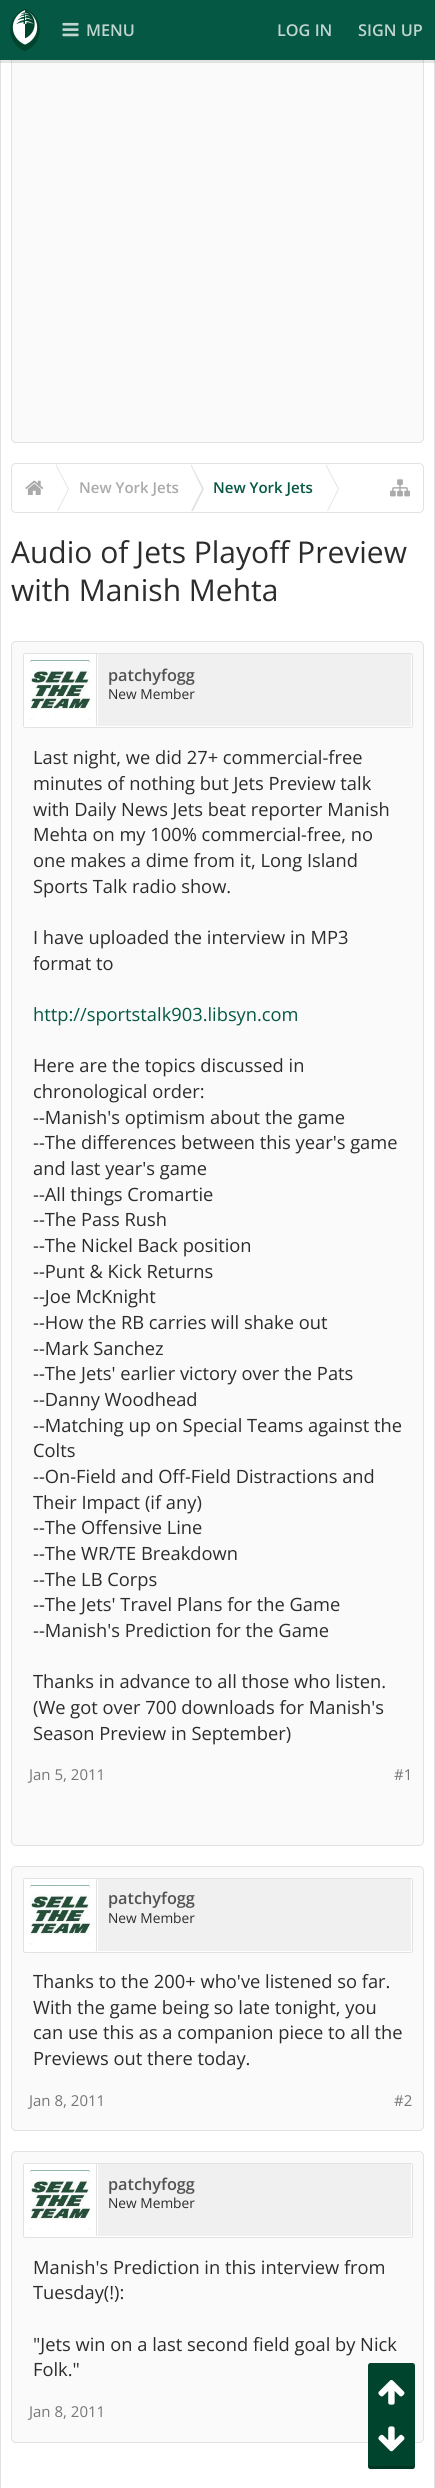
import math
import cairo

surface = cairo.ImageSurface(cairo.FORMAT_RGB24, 435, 2488)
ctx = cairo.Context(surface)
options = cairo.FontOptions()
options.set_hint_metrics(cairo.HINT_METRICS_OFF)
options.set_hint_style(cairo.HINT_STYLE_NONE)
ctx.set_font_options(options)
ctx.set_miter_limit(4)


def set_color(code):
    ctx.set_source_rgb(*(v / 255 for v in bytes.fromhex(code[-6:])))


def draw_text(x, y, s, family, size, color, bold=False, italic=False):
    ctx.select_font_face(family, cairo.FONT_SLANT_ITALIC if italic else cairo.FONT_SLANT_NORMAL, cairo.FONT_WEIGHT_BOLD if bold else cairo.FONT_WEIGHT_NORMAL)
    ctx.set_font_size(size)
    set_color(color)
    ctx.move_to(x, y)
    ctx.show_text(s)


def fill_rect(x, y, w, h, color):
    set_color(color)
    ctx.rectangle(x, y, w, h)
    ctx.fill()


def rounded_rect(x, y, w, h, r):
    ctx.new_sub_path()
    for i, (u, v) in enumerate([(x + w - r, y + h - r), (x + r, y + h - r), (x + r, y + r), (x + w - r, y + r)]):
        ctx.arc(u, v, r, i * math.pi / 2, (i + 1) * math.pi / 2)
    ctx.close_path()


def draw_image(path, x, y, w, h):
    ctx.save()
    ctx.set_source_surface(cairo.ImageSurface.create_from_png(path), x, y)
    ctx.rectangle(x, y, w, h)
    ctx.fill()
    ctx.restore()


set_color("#ffffff")
ctx.paint()
fill_rect(434, 60, 1, 2428, "#e2e2e2")
fill_rect(0, 60, 1, 2428, "#e2e2e2")
set_color("#fafafa")
rounded_rect(11.5, -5.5, 412, 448, 4.5)
ctx.fill_preserve()
set_color("#e2e2e2")
ctx.set_line_width(1)
ctx.stroke()
ctx.set_source_rgba(0, 0, 0, 0.1)
ctx.rectangle(0, 60, 435, 3)
ctx.fill()
fill_rect(0, 0, 435, 60, "#055843")
draw_image("assets/img1.png", 10, 9, 30, 42)
draw_image("assets/img2.png", 62, 22, 17, 15)
draw_text(86, 36, "MENU", "Open Sans SemiBold", 16.25, "#c1d5d0")
draw_text(277, 36, "LOG IN", "Open Sans SemiBold", 16.25, "#c1d5d0")
draw_text(358, 36, "SIGN UP", "Open Sans SemiBold", 16.25, "#c1d5d0")
rounded_rect(11.5, 463.5, 412, 49, 4.5)
set_color("#e2e2e2")
ctx.stroke()
draw_image("assets/img3.png", 25, 480, 19, 15)
ctx.new_path()
ctx.move_to(58, 511)
ctx.line_to(56, 511)
ctx.line_to(56, 464)
ctx.line_to(69, 489)
ctx.close_path()
ctx.fill()
set_color("#ffffff")
ctx.new_path()
ctx.move_to(57, 511)
ctx.line_to(55, 511)
ctx.line_to(55, 464)
ctx.line_to(68, 489)
ctx.close_path()
ctx.fill()
draw_text(79, 493, "New York Jets", "Open Sans SemiBold", 15, "#aaaaaa")
set_color("#e2e2e2")
ctx.new_path()
ctx.move_to(193, 511)
ctx.line_to(191, 511)
ctx.line_to(191, 464)
ctx.line_to(204, 489)
ctx.close_path()
ctx.fill()
set_color("#ffffff")
ctx.new_path()
ctx.move_to(191, 511)
ctx.line_to(190, 511)
ctx.line_to(190, 464)
ctx.line_to(202, 489)
ctx.close_path()
ctx.fill()
draw_text(213, 493, "New York Jets", "Open Sans SemiBold", 15, "#055843")
set_color("#e2e2e2")
ctx.new_path()
ctx.move_to(328, 511)
ctx.line_to(326, 511)
ctx.line_to(326, 464)
ctx.line_to(339, 489)
ctx.close_path()
ctx.fill()
set_color("#ffffff")
ctx.new_path()
ctx.move_to(327, 511)
ctx.line_to(325, 511)
ctx.line_to(325, 464)
ctx.line_to(338, 489)
ctx.close_path()
ctx.fill()
draw_image("assets/img4.png", 390, 479, 20, 18)
draw_text(11, 563, "Audio of Jets Playoff Preview", "Open Sans", 30, "#2c2c2c")
draw_text(11, 601, "with Manish Mehta", "Open Sans", 30, "#2c2c2c")
set_color("#fafafa")
rounded_rect(11.5, 641.5, 412, 1204, 4.5)
ctx.fill_preserve()
set_color("#e2e2e2")
ctx.stroke()
set_color("#ffffff")
rounded_rect(23.5, 653.5, 389, 74, 2)
ctx.fill_preserve()
set_color("#e2e2e2")
ctx.stroke()
set_color("#055843")
rounded_rect(30, 660, 60, 60, 2.5)
ctx.fill()
draw_image("assets/img5.png", 30, 660, 60, 60)
fill_rect(98, 654, 313, 72, "#f0f0f0")
fill_rect(96, 654, 1, 72, "#e2e2e2")
draw_text(108, 681, "patchyfogg", "Open Sans SemiBold", 16.25, "#535353")
draw_text(108, 699, "New Member", "Open Sans", 13.75, "#2c2c2c")
draw_text(33, 764, "Last night, we did 27+ commercial-free", "Open Sans", 18.3, "#2c2c2c")
draw_text(33, 790, "minutes of nothing but Jets Preview talk", "Open Sans", 18.3, "#2c2c2c")
draw_text(33, 816, "with Daily News Jets beat reporter Manish", "Open Sans", 18.3, "#2c2c2c")
draw_text(33, 841, "Mehta on my 100% commercial-free, no", "Open Sans", 18.3, "#2c2c2c")
draw_text(33, 867, "one makes a dime from it, Long Island", "Open Sans", 18.3, "#2c2c2c")
draw_text(33, 893, "Sports Talk radio show.", "Open Sans", 18.3, "#2c2c2c")
draw_text(33, 944, "I have uploaded the interview in MP3", "Open Sans", 18.3, "#2c2c2c")
draw_text(33, 970, "format to", "Open Sans", 18.3, "#2c2c2c")
draw_text(33, 1021, "http://sportstalk903.libsyn.com", "Open Sans", 18.3, "#055843")
draw_text(33, 1072, "Here are the topics discussed in", "Open Sans", 18.3, "#2c2c2c")
draw_text(33, 1098, "chronological order:", "Open Sans", 18.3, "#2c2c2c")
draw_text(33, 1124, "--Manish's optimism about the game", "Open Sans", 18.3, "#2c2c2c")
draw_text(33, 1149, "--The differences between this year's game", "Open Sans", 18.3, "#2c2c2c")
draw_text(33, 1175, "and last year's game", "Open Sans", 18.3, "#2c2c2c")
draw_text(33, 1201, "--All things Cromartie", "Open Sans", 18.3, "#2c2c2c")
draw_text(33, 1226, "--The Pass Rush", "Open Sans", 18.3, "#2c2c2c")
draw_text(33, 1252, "--The Nickel Back position", "Open Sans", 18.3, "#2c2c2c")
draw_text(33, 1278, "--Punt & Kick Returns", "Open Sans", 18.3, "#2c2c2c")
draw_text(33, 1303, "--Joe McKnight", "Open Sans", 18.3, "#2c2c2c")
draw_text(33, 1329, "--How the RB carries will shake out", "Open Sans", 18.3, "#2c2c2c")
draw_text(33, 1355, "--Mark Sanchez", "Open Sans", 18.3, "#2c2c2c")
draw_text(33, 1380, "--The Jets' earlier victory over the Pats", "Open Sans", 18.3, "#2c2c2c")
draw_text(33, 1406, "--Danny Woodhead", "Open Sans", 18.3, "#2c2c2c")
draw_text(33, 1432, "--Matching up on Special Teams against the", "Open Sans", 18.3, "#2c2c2c")
draw_text(33, 1457, "Colts", "Open Sans", 18.3, "#2c2c2c")
draw_text(33, 1483, "--On-Field and Off-Field Distractions and", "Open Sans", 18.3, "#2c2c2c")
draw_text(33, 1509, "Their Impact (if any)", "Open Sans", 18.3, "#2c2c2c")
draw_text(33, 1534, "--The Offensive Line", "Open Sans", 18.3, "#2c2c2c")
draw_text(33, 1560, "--The WR/TE Breakdown", "Open Sans", 18.3, "#2c2c2c")
draw_text(33, 1586, "--The LB Corps", "Open Sans", 18.3, "#2c2c2c")
draw_text(33, 1611, "--The Jets' Travel Plans for the Game", "Open Sans", 18.3, "#2c2c2c")
draw_text(33, 1637, "--Manish's Prediction for the Game", "Open Sans", 18.3, "#2c2c2c")
draw_text(33, 1688, "Thanks in advance to all those who listen.", "Open Sans", 18.3, "#2c2c2c")
draw_text(33, 1714, "(We got over 700 downloads for Manish's", "Open Sans", 18.3, "#2c2c2c")
draw_text(33, 1740, "Season Preview in September)", "Open Sans", 18.3, "#2c2c2c")
draw_text(29, 1780, "Jan 5, 2011", "Open Sans", 15, "#767676")
draw_text(394, 1780, "#1", "Open Sans", 15, "#767676")
set_color("#fafafa")
rounded_rect(11.5, 1866.5, 412, 264, 4.5)
ctx.fill_preserve()
set_color("#e2e2e2")
ctx.stroke()
set_color("#ffffff")
rounded_rect(23.5, 1878.5, 389, 74, 2)
ctx.fill_preserve()
set_color("#e2e2e2")
ctx.stroke()
set_color("#055843")
rounded_rect(30, 1885, 60, 60, 2.5)
ctx.fill()
draw_image("assets/img5.png", 30, 1885, 60, 60)
fill_rect(98, 1879, 313, 72, "#f0f0f0")
fill_rect(96, 1879, 1, 72, "#e2e2e2")
draw_text(108, 1904, "patchyfogg", "Open Sans SemiBold", 16.25, "#535353")
draw_text(108, 1923, "New Member", "Open Sans", 13.75, "#2c2c2c")
draw_text(33, 1988, "Thanks to the 200+ who've listened so far.", "Open Sans", 18.3, "#2c2c2c")
draw_text(33, 2014, "With the game being so late tonight, you", "Open Sans", 18.3, "#2c2c2c")
draw_text(33, 2039, "can use this as a companion piece to all the", "Open Sans", 18.3, "#2c2c2c")
draw_text(33, 2065, "Previews out there today.", "Open Sans", 18.3, "#2c2c2c")
draw_text(29, 2106, "Jan 8, 2011", "Open Sans", 15, "#767676")
draw_text(394, 2106, "#2", "Open Sans", 15, "#767676")
set_color("#fafafa")
rounded_rect(11.5, 2151.5, 412, 291, 4.5)
ctx.fill_preserve()
set_color("#e2e2e2")
ctx.stroke()
set_color("#ffffff")
rounded_rect(23.5, 2163.5, 389, 74, 2)
ctx.fill_preserve()
set_color("#e2e2e2")
ctx.stroke()
set_color("#055843")
rounded_rect(30, 2170, 60, 60, 2.5)
ctx.fill()
draw_image("assets/img5.png", 30, 2170, 60, 60)
fill_rect(98, 2164, 313, 72, "#f0f0f0")
fill_rect(96, 2164, 1, 72, "#e2e2e2")
draw_text(108, 2190, "patchyfogg", "Open Sans SemiBold", 16.25, "#535353")
draw_text(108, 2208, "New Member", "Open Sans", 13.75, "#2c2c2c")
draw_text(33, 2274, "Manish's Prediction in this interview from", "Open Sans", 18.3, "#2c2c2c")
draw_text(33, 2299, "Tuesday(!):", "Open Sans", 18.3, "#2c2c2c")
draw_text(33, 2351, "\"Jets win on a last second field goal by Nick", "Open Sans", 18.3, "#2c2c2c")
draw_text(33, 2376, "Folk.\"", "Open Sans", 18.3, "#2c2c2c")
draw_text(29, 2417, "Jan 8, 2011", "Open Sans", 15, "#767676")
set_color("#00442e")
rounded_rect(368, 2363, 47, 106, 2.5)
ctx.fill()
ctx.set_source_rgba(0, 0, 0, 0.2)
ctx.new_path()
ctx.move_to(368, 2464)
ctx.curve_to(368, 2471, 370, 2469, 378, 2469)
ctx.line_to(406, 2469)
ctx.curve_to(413, 2469, 415, 2471, 415, 2464)
ctx.curve_to(415, 2465, 414, 2466, 412, 2466)
ctx.line_to(370, 2466)
ctx.curve_to(369, 2466, 368, 2465, 368, 2464)
ctx.close_path()
ctx.fill()
draw_image("assets/img6.png", 378, 2380, 27, 25)
draw_image("assets/img7.png", 378, 2426, 27, 26)
surface.write_to_png("output.png")
